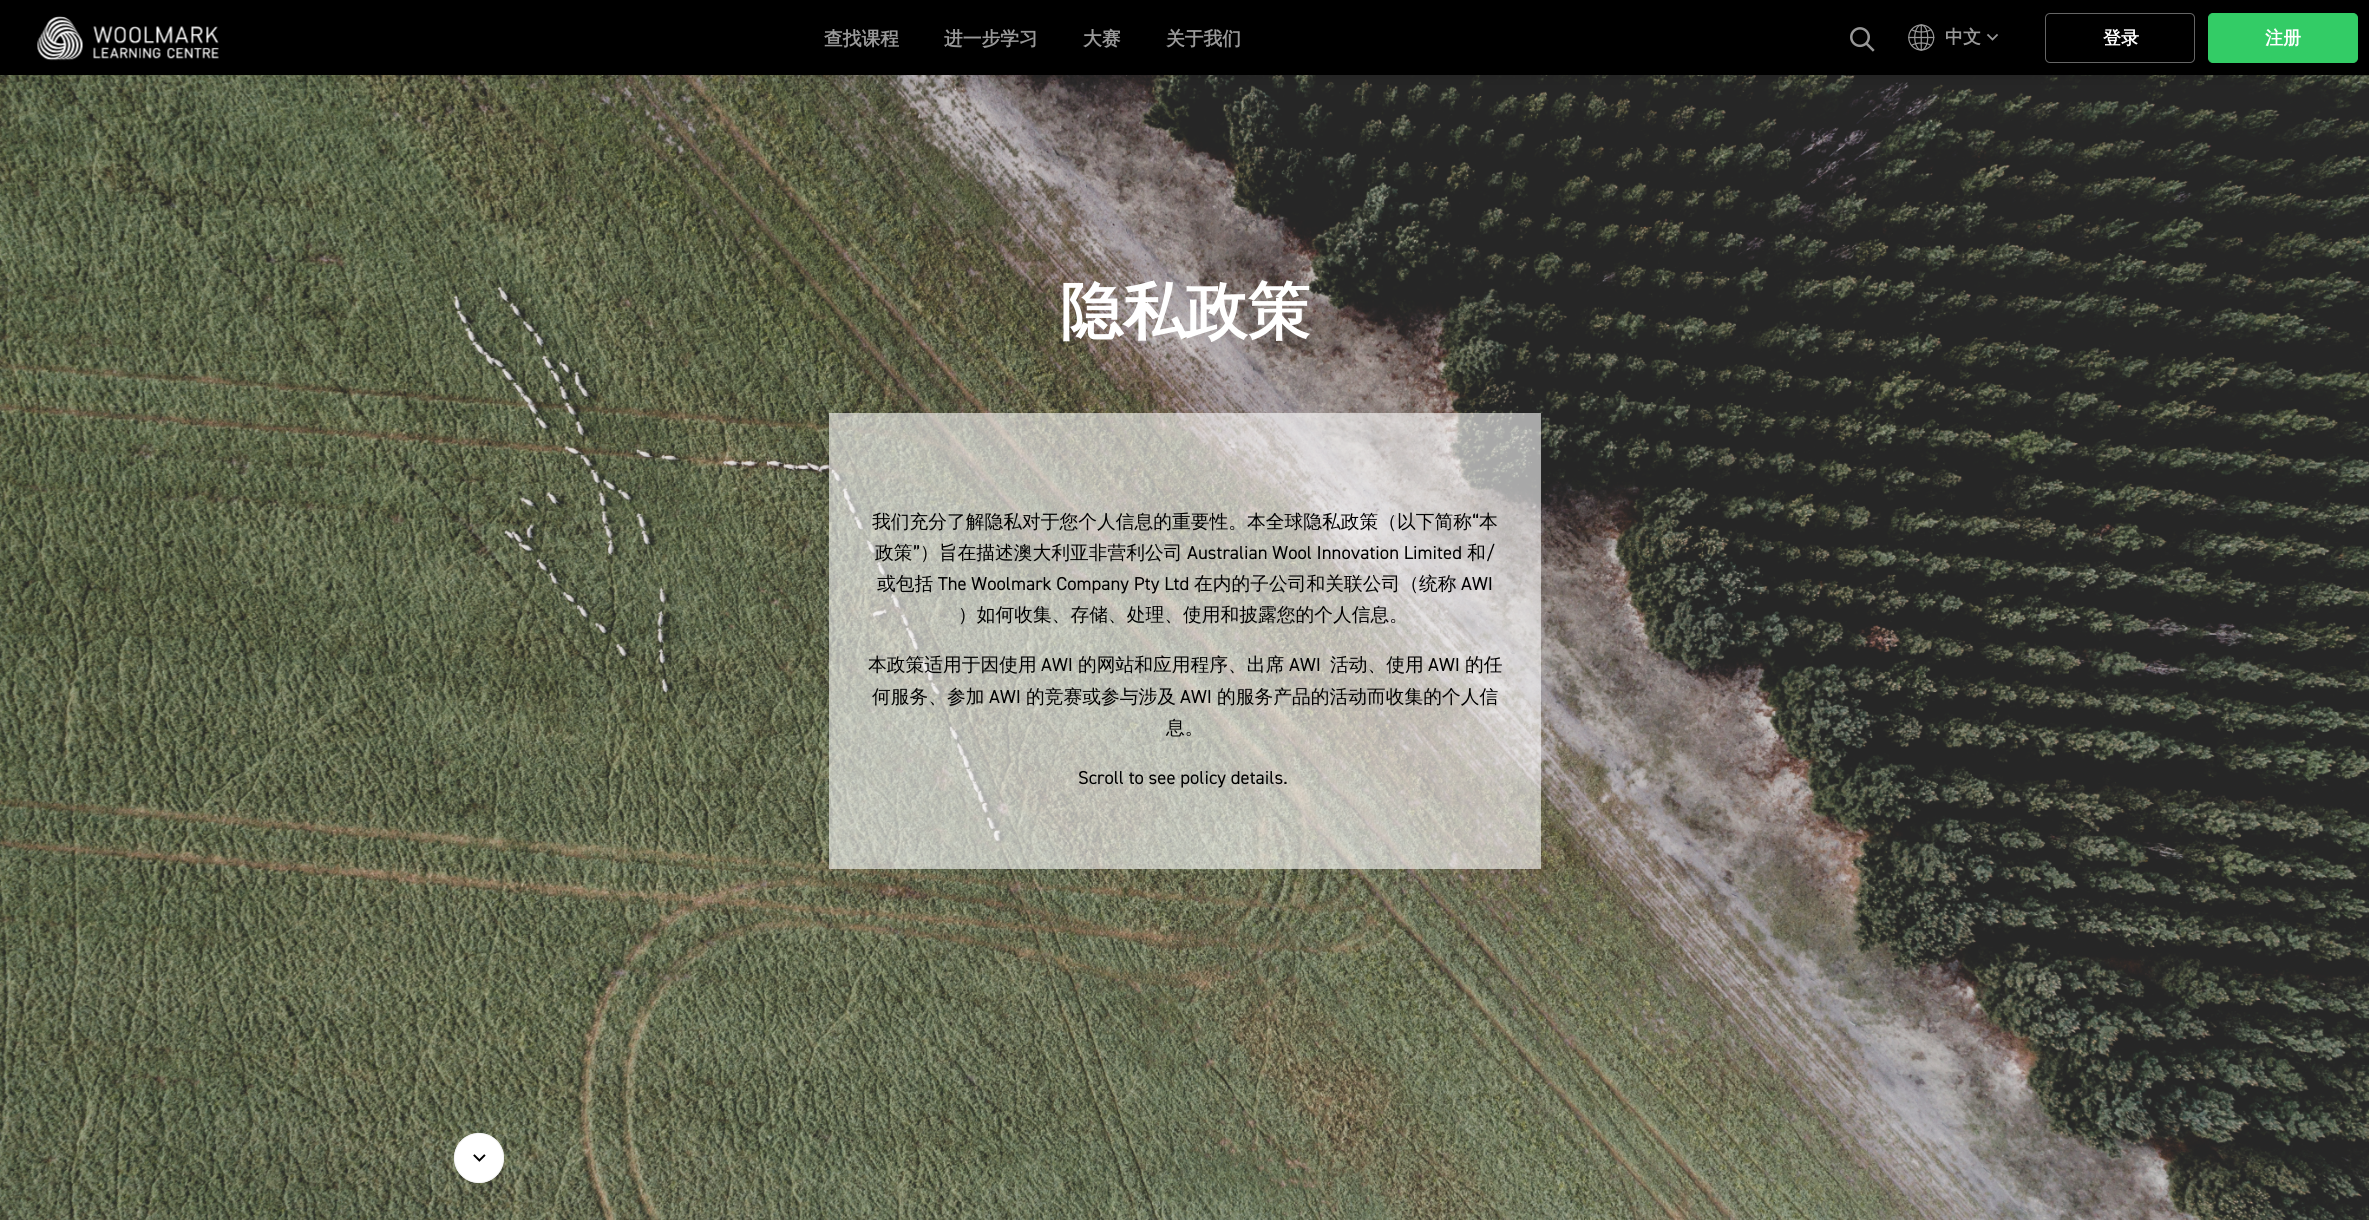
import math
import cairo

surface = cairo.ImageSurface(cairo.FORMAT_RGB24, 2369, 1220)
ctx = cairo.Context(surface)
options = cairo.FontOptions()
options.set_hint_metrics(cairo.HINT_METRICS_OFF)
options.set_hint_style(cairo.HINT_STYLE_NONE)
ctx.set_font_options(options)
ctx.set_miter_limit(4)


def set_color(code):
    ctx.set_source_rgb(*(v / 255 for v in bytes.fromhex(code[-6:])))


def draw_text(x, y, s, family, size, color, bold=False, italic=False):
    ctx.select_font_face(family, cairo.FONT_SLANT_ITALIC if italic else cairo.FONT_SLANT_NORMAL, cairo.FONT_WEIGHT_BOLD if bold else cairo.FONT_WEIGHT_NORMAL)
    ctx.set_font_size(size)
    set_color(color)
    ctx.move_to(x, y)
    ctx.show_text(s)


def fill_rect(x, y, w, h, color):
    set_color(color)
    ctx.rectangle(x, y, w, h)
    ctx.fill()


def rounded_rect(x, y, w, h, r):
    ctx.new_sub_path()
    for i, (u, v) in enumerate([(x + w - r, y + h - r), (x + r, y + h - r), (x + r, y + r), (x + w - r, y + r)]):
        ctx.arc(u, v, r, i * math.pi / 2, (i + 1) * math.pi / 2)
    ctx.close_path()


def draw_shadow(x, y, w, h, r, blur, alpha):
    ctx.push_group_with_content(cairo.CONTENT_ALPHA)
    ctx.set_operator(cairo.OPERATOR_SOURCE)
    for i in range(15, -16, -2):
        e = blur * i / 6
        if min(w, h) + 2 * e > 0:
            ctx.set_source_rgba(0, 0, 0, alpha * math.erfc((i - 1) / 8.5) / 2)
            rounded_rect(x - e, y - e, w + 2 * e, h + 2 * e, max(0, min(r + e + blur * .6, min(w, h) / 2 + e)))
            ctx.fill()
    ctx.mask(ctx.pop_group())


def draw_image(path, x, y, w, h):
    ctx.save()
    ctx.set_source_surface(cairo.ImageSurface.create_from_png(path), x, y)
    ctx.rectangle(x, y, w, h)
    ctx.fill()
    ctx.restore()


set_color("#ffffff")
ctx.paint()
draw_image("assets/img5.png", 0, 75, 2369, 1145)
set_color("#000000")
draw_shadow(0, 3, 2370, 75, 0, 6, 0.1)
fill_rect(0, 0, 2369, 75, "#000000")
draw_image("assets/img1.png", 37, 16, 182, 45)
draw_text(824, 45, "查找课程", "WenQuanYi Zen Hei", 18.75, "#999999", bold=True)
draw_text(944, 45, "进一步学习", "WenQuanYi Zen Hei", 18.75, "#999999", bold=True)
draw_text(1083, 45, "大赛", "WenQuanYi Zen Hei", 18.75, "#999999", bold=True)
draw_text(1166, 45, "关于我们", "WenQuanYi Zen Hei", 18.75, "#999999", bold=True)
draw_image("assets/img2.png", 1850, 27, 25, 25)
draw_image("assets/img3.png", 1908, 24, 27, 27)
draw_text(1945, 43, "中文", "WenQuanYi Zen Hei", 18, "#999999", bold=True)
draw_image("assets/img4.png", 1986, 33, 13, 8)
rounded_rect(2045.5, 13.5, 149, 49, 4.5)
set_color("#666666")
ctx.set_line_width(1)
ctx.stroke()
draw_text(2103, 44, "登录", "WenQuanYi Zen Hei", 18, "#ffffff", bold=True)
set_color("#33cc66")
rounded_rect(2208.5, 13.5, 149, 49, 4.5)
ctx.fill_preserve()
ctx.stroke()
draw_text(2265, 44, "注册", "WenQuanYi Zen Hei", 18, "#ffffff", bold=True)
draw_text(1060, 333, "隐私政策", "WenQuanYi Zen Hei", 62.5, "#ffffff", bold=True)
ctx.set_source_rgba(1, 1, 1, 0.6)
ctx.rectangle(829, 413, 712, 456)
ctx.fill()
draw_text(872, 528, "我们充分了解隐私对于您个人信息的重要性。本全球隐私政策（以下简称", "WenQuanYi Zen Hei Medium", 18.75, "#000000")
draw_text(1472, 528, "“", "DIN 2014", 18.75, "#000000")
draw_text(1479, 528, "本", "WenQuanYi Zen Hei Medium", 18.75, "#000000")
draw_text(875, 559, "政策", "WenQuanYi Zen Hei Medium", 18.75, "#000000")
draw_text(913, 559, "”", "DIN 2014", 18.75, "#000000")
draw_text(920, 559, "）旨在描述澳大利亚非营利公司", "WenQuanYi Zen Hei Medium", 18.75, "#000000")
draw_text(1187, 559, "Australian Wool Innovation Limited", "DIN 2014", 18.75, "#000000")
draw_text(1467, 559, "和", "WenQuanYi Zen Hei Medium", 18.75, "#000000")
draw_text(1486, 559, "/", "DIN 2014", 18.75, "#000000")
draw_text(877, 590, "或包括", "WenQuanYi Zen Hei Medium", 18.75, "#000000")
draw_text(938, 590, "The Woolmark Company Pty Ltd", "DIN 2014", 18.75, "#000000")
draw_text(1194, 590, "在内的子公司和关联公司（统称", "WenQuanYi Zen Hei Medium", 18.75, "#000000")
draw_text(1461, 590, "AWI", "DIN 2014", 18.75, "#000000")
draw_text(958, 621, "）如何收集、存储、处理、使用和披露您的个人信息。", "WenQuanYi Zen Hei Medium", 18.75, "#000000")
draw_text(868, 671, "本政策适用于因使用", "WenQuanYi Zen Hei Medium", 18.75, "#000000")
draw_text(1041, 671, "AWI", "DIN 2014", 18.75, "#000000")
draw_text(1078, 671, "的网站和应用程序、出席", "WenQuanYi Zen Hei Medium", 18.75, "#000000")
draw_text(1289, 671, "AWI", "DIN 2014", 18.75, "#000000")
draw_text(1330, 671, "活动、使用", "WenQuanYi Zen Hei Medium", 18.75, "#000000")
draw_text(1428, 671, "AWI", "DIN 2014", 18.75, "#000000")
draw_text(1465, 671, "的任", "WenQuanYi Zen Hei Medium", 18.75, "#000000")
draw_text(872, 703, "何服务、参加", "WenQuanYi Zen Hei Medium", 18.75, "#000000")
draw_text(989, 703, "AWI", "DIN 2014", 18.75, "#000000")
draw_text(1026, 703, "的竞赛或参与涉及", "WenQuanYi Zen Hei Medium", 18.75, "#000000")
draw_text(1180, 703, "AWI", "DIN 2014", 18.75, "#000000")
draw_text(1217, 703, "的服务产品的活动而收集的个人信", "WenQuanYi Zen Hei Medium", 18.75, "#000000")
draw_text(1166, 734, "息。", "WenQuanYi Zen Hei Medium", 18.75, "#000000")
draw_text(1078, 784, "Scroll to see policy details.", "DIN 2014", 18.75, "#000000")
set_color("#ffffff")
ctx.new_path()
ctx.arc(479, 1158, 25, 0, 2 * math.pi)
ctx.fill()
ctx.arc(479, 1158, 24.5, 0, 2 * math.pi)
ctx.set_source_rgba(0.953, 0.953, 0.953, 0.75)
ctx.stroke()
draw_image("assets/img6.png", 473, 1154, 13, 8)
surface.write_to_png("output.png")
